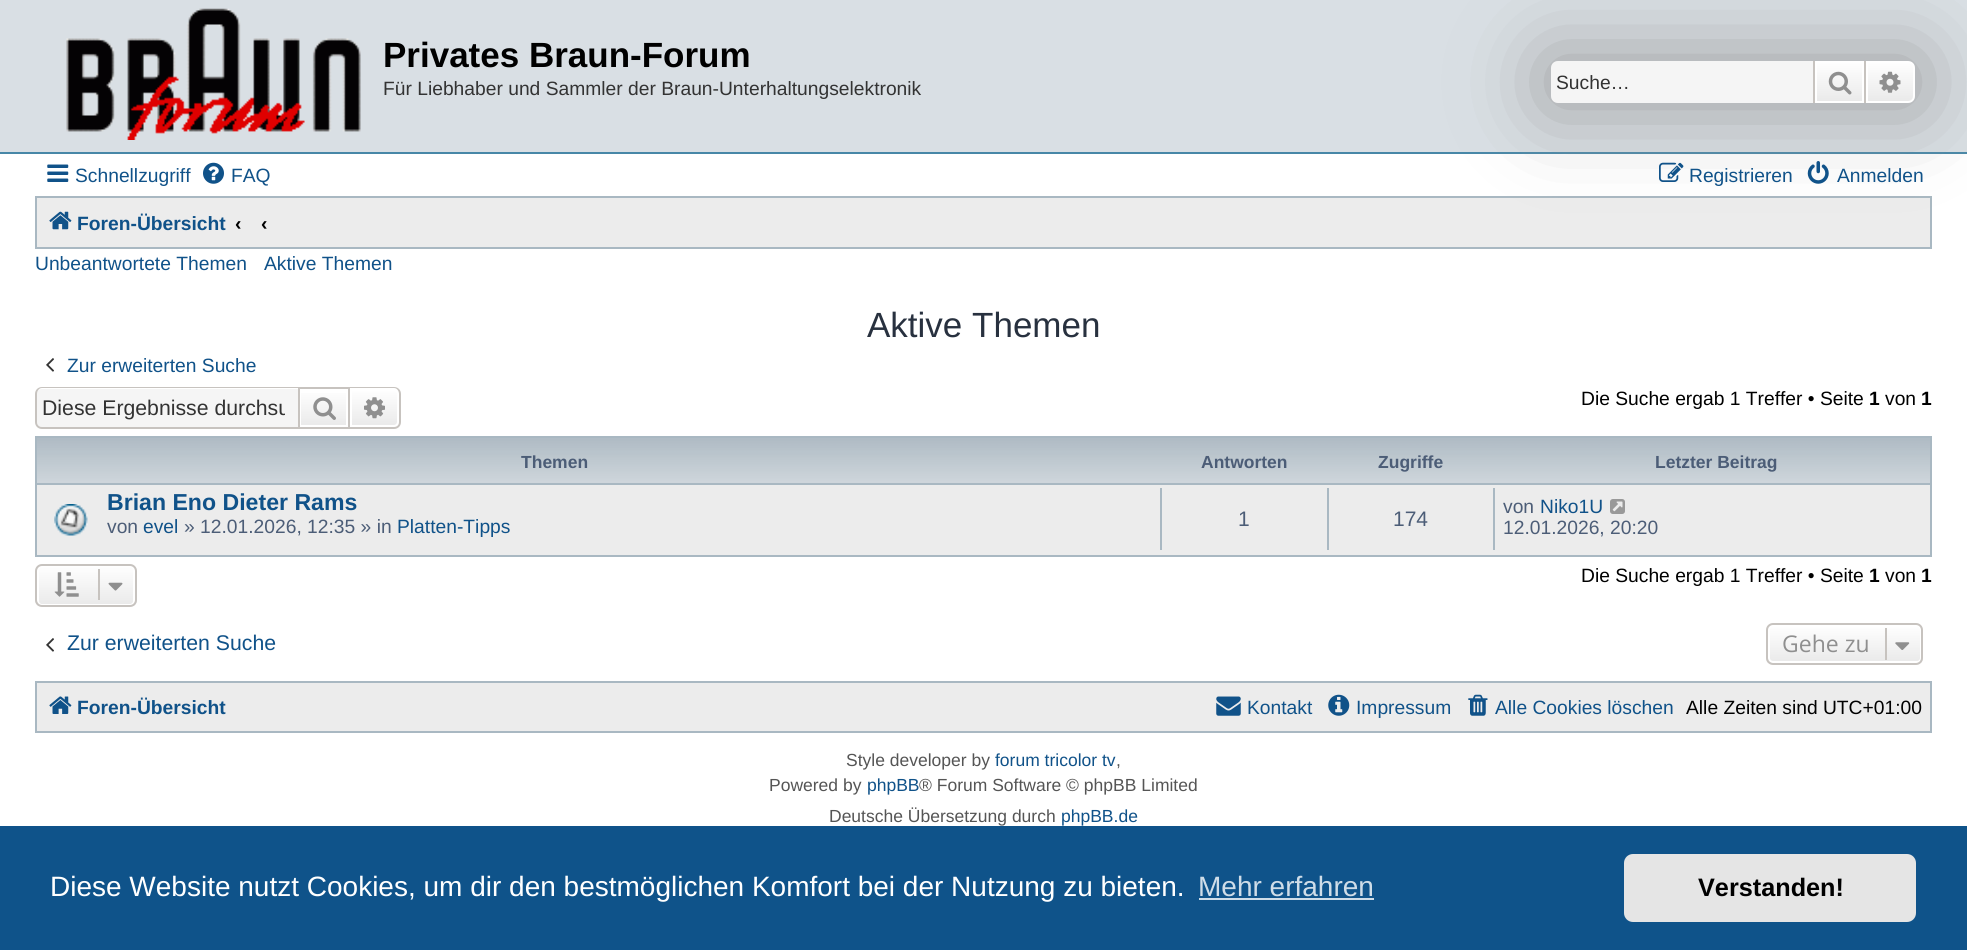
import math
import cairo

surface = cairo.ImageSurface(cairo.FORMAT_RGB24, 1967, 950)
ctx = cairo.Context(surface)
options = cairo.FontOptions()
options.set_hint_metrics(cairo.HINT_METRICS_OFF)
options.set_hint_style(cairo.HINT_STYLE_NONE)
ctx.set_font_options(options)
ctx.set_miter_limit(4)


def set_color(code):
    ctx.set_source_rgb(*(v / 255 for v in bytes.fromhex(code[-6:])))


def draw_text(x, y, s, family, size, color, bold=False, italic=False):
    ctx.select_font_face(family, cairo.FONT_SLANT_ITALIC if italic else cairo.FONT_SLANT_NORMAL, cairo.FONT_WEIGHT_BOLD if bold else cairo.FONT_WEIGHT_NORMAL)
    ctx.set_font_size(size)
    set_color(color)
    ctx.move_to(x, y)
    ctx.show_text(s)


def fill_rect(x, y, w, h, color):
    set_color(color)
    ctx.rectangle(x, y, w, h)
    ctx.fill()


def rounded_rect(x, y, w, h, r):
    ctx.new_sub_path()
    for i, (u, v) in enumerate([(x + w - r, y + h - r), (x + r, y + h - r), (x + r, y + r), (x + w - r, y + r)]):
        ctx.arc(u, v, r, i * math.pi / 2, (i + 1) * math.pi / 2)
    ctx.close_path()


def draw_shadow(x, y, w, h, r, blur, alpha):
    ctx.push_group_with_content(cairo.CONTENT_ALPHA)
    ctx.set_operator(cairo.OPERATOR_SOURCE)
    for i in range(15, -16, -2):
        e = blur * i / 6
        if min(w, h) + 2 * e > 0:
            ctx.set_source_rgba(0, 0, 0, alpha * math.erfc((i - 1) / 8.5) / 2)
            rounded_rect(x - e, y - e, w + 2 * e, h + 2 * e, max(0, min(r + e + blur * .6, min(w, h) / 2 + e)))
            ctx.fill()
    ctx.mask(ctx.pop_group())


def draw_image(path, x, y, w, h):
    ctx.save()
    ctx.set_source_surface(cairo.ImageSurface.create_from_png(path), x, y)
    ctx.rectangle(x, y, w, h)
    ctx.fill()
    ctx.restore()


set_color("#ffffff")
ctx.paint()
fill_rect(0, 0, 1967, 152, "#d9dfe4")
fill_rect(0, 152, 1967, 2, "#4787a7")
draw_image("assets/img1.png", 66, 8, 295, 132)
draw_text(383, 67, "Privates Braun-Forum", "Liberation Sans", 35, "#000000", bold=True)
draw_text(383, 95, "Für Liebhaber und Sammler der Braun-Unterhaltungselektronik", "Liberation Sans", 19.25, "#333333")
set_color("#ececec")
ctx.rectangle(36, 197, 1895, 51)
ctx.fill_preserve()
set_color("#a9b8c2")
ctx.stroke()
set_color("#999999")
draw_shadow(1551, 61, 364, 42, 7, 44, 1)
set_color("#f5f5f5")
ctx.new_path()
ctx.move_to(1558, 61)
ctx.line_to(1813, 61)
ctx.line_to(1813, 103)
ctx.line_to(1558, 103)
ctx.curve_to(1554, 103, 1551, 100, 1551, 96)
ctx.line_to(1551, 68)
ctx.curve_to(1551, 64, 1554, 61, 1558, 61)
ctx.close_path()
ctx.fill()
draw_text(1556, 89, "Suche…", "Liberation Sans", 19.25, "#333333")
gradient = cairo.LinearGradient(1839, 61, 1839, 103)
gradient.add_color_stop_rgba(0, 1, 1, 1, 1)
gradient.add_color_stop_rgba(1, 0.914, 0.914, 0.914, 1)
ctx.set_source(gradient)
ctx.rectangle(1817, 63, 45, 38)
ctx.fill()
ctx.rectangle(1816, 62, 47, 40)
set_color("#ffffff")
ctx.stroke()
fill_rect(1864, 61, 2, 42, "#c7c3bf")
fill_rect(1813, 61, 2, 42, "#c7c3bf")
draw_image("assets/img2.png", 1828, 71, 24, 24)
gradient = cairo.LinearGradient(1890, 61, 1890, 103)
gradient.add_color_stop_rgba(0, 1, 1, 1, 1)
gradient.add_color_stop_rgba(1, 0.914, 0.914, 0.914, 1)
ctx.set_source(gradient)
ctx.new_path()
ctx.move_to(1867, 62)
ctx.line_to(1908, 62)
ctx.curve_to(1911.5, 62, 1914, 64.5, 1914, 68)
ctx.line_to(1914, 96)
ctx.curve_to(1914, 99.5, 1911.5, 102, 1908, 102)
ctx.line_to(1867, 102)
ctx.close_path()
ctx.fill_preserve()
set_color("#ffffff")
ctx.stroke()
draw_image("assets/img3.png", 1879, 71, 22, 22)
draw_image("assets/img4.png", 47, 164, 22, 18)
draw_text(75, 182, "Schnellzugriff", "Liberation Sans", 19.25, "#105289")
draw_image("assets/img5.png", 203, 162, 21, 22)
draw_text(231, 182, "FAQ", "Liberation Sans", 19.25, "#105289")
draw_image("assets/img6.png", 1659, 162, 25, 20)
draw_text(1689, 182, "Registrieren", "Liberation Sans", 19.25, "#105289")
draw_image("assets/img7.png", 1807, 161, 22, 23)
draw_text(1837, 182, "Anmelden", "Liberation Sans", 19.25, "#105289")
draw_image("assets/img8.png", 49, 211, 23, 19)
draw_text(77, 230, "Foren-Übersicht", "Liberation Sans", 19.25, "#105289", bold=True)
draw_text(235, 230, "‹", "Liberation Sans", 19.25, "#000000", bold=True)
draw_text(261, 230, "‹", "Liberation Sans", 19.25, "#000000", bold=True)
draw_text(35, 270, "Unbeantwortete Themen", "Liberation Sans", 19.25, "#105289")
draw_text(264, 270, "Aktive Themen", "Liberation Sans", 19.25, "#105289")
draw_text(867, 337, "Aktive Themen", "Liberation Sans", 35, "#28313f")
draw_image("assets/img9.png", 46, 358, 8, 14)
draw_text(67, 372, "Zur erweiterten Suche", "Liberation Sans", 19.25, "#105289")
set_color("#f5f5f5")
ctx.new_path()
ctx.move_to(42, 389)
ctx.line_to(298, 389)
ctx.line_to(298, 427)
ctx.line_to(42, 427)
ctx.curve_to(39, 427, 37, 425, 37, 422)
ctx.line_to(37, 394)
ctx.curve_to(37, 391, 39, 389, 42, 389)
ctx.close_path()
ctx.fill()
set_color("#c7c3bf")
ctx.set_fill_rule(cairo.FILL_RULE_EVEN_ODD)
ctx.new_path()
ctx.move_to(42, 387)
ctx.line_to(298, 387)
ctx.line_to(298, 429)
ctx.line_to(42, 429)
ctx.curve_to(38, 429, 35, 426, 35, 422)
ctx.line_to(35, 394)
ctx.curve_to(35, 390, 38, 387, 42, 387)
ctx.close_path()
ctx.move_to(42, 388)
ctx.line_to(298, 388)
ctx.line_to(298, 427)
ctx.line_to(42, 427)
ctx.curve_to(39, 427, 37, 425, 37, 422)
ctx.line_to(37, 394)
ctx.curve_to(37, 391, 39, 388, 42, 388)
ctx.close_path()
ctx.fill()
ctx.save()
ctx.set_fill_rule(cairo.FILL_RULE_WINDING)
ctx.rectangle(42, 396, 243, 24)
ctx.clip()
draw_text(42, 415, "Diese Ergebnisse durchsu", "Liberation Sans", 21.25, "#333333")
ctx.restore()
gradient = cairo.LinearGradient(324, 389, 324, 427)
gradient.add_color_stop_rgba(0, 1, 1, 1, 1)
gradient.add_color_stop_rgba(1, 0.914, 0.914, 0.914, 1)
ctx.set_source(gradient)
ctx.rectangle(301, 393, 45, 32)
ctx.fill()
ctx.rectangle(299, 388, 50, 40)
set_color("#c7c3bf")
ctx.stroke()
draw_image("assets/img10.png", 313, 397, 23, 23)
gradient = cairo.LinearGradient(375, 389, 375, 427)
gradient.add_color_stop_rgba(0, 1, 1, 1, 1)
gradient.add_color_stop_rgba(1, 0.914, 0.914, 0.914, 1)
ctx.set_source(gradient)
ctx.new_path()
ctx.move_to(351, 390)
ctx.line_to(394, 390)
ctx.curve_to(396, 390, 398, 392, 398, 394)
ctx.line_to(398, 422)
ctx.curve_to(398, 424, 396, 426, 394, 426)
ctx.line_to(351, 426)
ctx.close_path()
ctx.fill_preserve()
set_color("#ffffff")
ctx.stroke()
set_color("#c7c3bf")
ctx.new_path()
ctx.move_to(350, 387)
ctx.line_to(394, 387)
ctx.curve_to(398, 387, 401, 390, 401, 394)
ctx.line_to(401, 422)
ctx.curve_to(401, 426, 398, 429, 394, 429)
ctx.line_to(350, 429)
ctx.close_path()
ctx.move_to(350, 388)
ctx.line_to(394, 388)
ctx.curve_to(397, 388, 399, 391, 399, 394)
ctx.line_to(399, 422)
ctx.curve_to(399, 425, 397, 427, 394, 427)
ctx.line_to(350, 427)
ctx.close_path()
ctx.fill()
draw_image("assets/img11.png", 364, 397, 21, 22)
draw_text(1581, 405, "Die Suche ergab 1 Treffer • Seite", "Liberation Sans", 19.25, "#000000")
draw_text(1869, 405, "1", "Liberation Sans", 19.25, "#000000", bold=True)
draw_text(1885, 405, "von", "Liberation Sans", 19.25, "#000000")
draw_text(1921, 405, "1", "Liberation Sans", 19.25, "#000000", bold=True)
draw_image("assets/img12.png", 37, 438, 1893, 45)
ctx.rectangle(36, 437, 1895, 119)
set_color("#a9b8c2")
ctx.stroke()
draw_text(521, 468, "Themen", "Liberation Sans", 17.5, "#4c5d77", bold=True)
draw_text(1201, 468, "Antworten", "Liberation Sans", 17.5, "#4c5d77", bold=True)
draw_text(1378, 468, "Zugriffe", "Liberation Sans", 17.5, "#4c5d77", bold=True)
draw_text(1655, 468, "Letzter Beitrag", "Liberation Sans", 17.5, "#4c5d77", bold=True)
fill_rect(37, 485, 1893, 70, "#ececec")
fill_rect(37, 483, 1893, 2, "#a9b8c2")
draw_image("assets/img13.png", 54, 504, 34, 32)
draw_text(107, 510, "Brian Eno Dieter Rams", "Liberation Sans", 23.1, "#105289", bold=True)
draw_text(107, 533, "von", "Liberation Sans", 19.25, "#4c5d77")
draw_text(143, 533, "evel", "Liberation Sans", 19.25, "#105289")
draw_text(184, 533, "» 12.01.2026, 12:35 » in", "Liberation Sans", 19.25, "#4c5d77")
draw_text(397, 533, "Platten-Tipps", "Liberation Sans", 19.25, "#105289")
fill_rect(1160, 488, 2, 62, "#a9b8c2")
draw_text(1238, 526, "1", "Liberation Sans", 21, "#4c5d77")
fill_rect(1327, 488, 2, 62, "#a9b8c2")
draw_text(1393, 526, "174", "Liberation Sans", 21, "#4c5d77")
fill_rect(1493, 488, 2, 62, "#a9b8c2")
draw_text(1503, 513, "von", "Liberation Sans", 19.25, "#4c5d77")
draw_text(1540, 513, "Niko1U", "Liberation Sans", 19.25, "#105289")
draw_image("assets/img14.png", 1610, 499, 15, 15)
draw_text(1503, 534, "12.01.2026, 20:20", "Liberation Sans", 19.25, "#4c5d77")
ctx.save()
ctx.set_fill_rule(cairo.FILL_RULE_WINDING)
rounded_rect(35, 564, 102, 43, 7)
ctx.clip()
gradient = cairo.LinearGradient(86, 565, 86, 606)
gradient.add_color_stop_rgba(0, 1, 1, 1, 1)
gradient.add_color_stop_rgba(1, 0.914, 0.914, 0.914, 1)
ctx.set_source(gradient)
ctx.rectangle(35, 565, 102, 41)
ctx.fill()
ctx.restore()
rounded_rect(38, 566, 96, 39, 4)
set_color("#ffffff")
ctx.stroke()
rounded_rect(36, 565, 100, 41, 6)
set_color("#c7c3bf")
ctx.stroke()
draw_image("assets/img15.png", 54, 572, 25, 25)
fill_rect(98, 569, 2, 31, "#c7c3bf")
draw_image("assets/img16.png", 108, 582, 15, 9)
draw_text(1581, 582, "Die Suche ergab 1 Treffer • Seite", "Liberation Sans", 19.25, "#000000")
draw_text(1869, 582, "1", "Liberation Sans", 19.25, "#000000", bold=True)
draw_text(1885, 582, "von", "Liberation Sans", 19.25, "#000000")
draw_text(1921, 582, "1", "Liberation Sans", 19.25, "#000000", bold=True)
draw_image("assets/img9.png", 46, 638, 8, 14)
draw_text(67, 650, "Zur erweiterten Suche", "Liberation Sans", 21.25, "#105289")
ctx.save()
ctx.set_fill_rule(cairo.FILL_RULE_WINDING)
rounded_rect(1766, 623, 157, 42, 7)
ctx.clip()
gradient = cairo.LinearGradient(1845, 625, 1845, 663)
gradient.add_color_stop_rgba(0, 1, 1, 1, 1)
gradient.add_color_stop_rgba(1, 0.914, 0.914, 0.914, 1)
ctx.set_source(gradient)
ctx.rectangle(1766, 625, 157, 38)
ctx.fill()
ctx.restore()
rounded_rect(1769, 626, 152, 36, 4)
set_color("#ffffff")
ctx.stroke()
rounded_rect(1767, 624, 155, 40, 6)
set_color("#c7c3bf")
ctx.stroke()
draw_text(1782, 652, "Gehe zu", "Open Sans", 23, "#8f8f8f")
fill_rect(1885, 628, 2, 32, "#c7c3bf")
draw_image("assets/img17.png", 1895, 642, 15, 8)
set_color("#ececec")
ctx.rectangle(36, 682, 1895, 50)
ctx.fill_preserve()
set_color("#a9b8c2")
ctx.stroke()
draw_image("assets/img18.png", 49, 696, 23, 18)
draw_text(77, 714, "Foren-Übersicht", "Liberation Sans", 19.25, "#105289", bold=True)
draw_image("assets/img19.png", 1216, 696, 25, 20)
draw_text(1247, 714, "Kontakt", "Liberation Sans", 19.25, "#105289")
draw_image("assets/img20.png", 1328, 694, 22, 22)
draw_text(1356, 714, "Impressum", "Liberation Sans", 19.25, "#105289")
draw_image("assets/img21.png", 1468, 694, 20, 22)
draw_text(1495, 714, "Alle Cookies löschen", "Liberation Sans", 19.25, "#105289")
draw_text(1686, 714, "Alle Zeiten sind UTC+01:00", "Liberation Sans", 19.25, "#000000")
draw_text(846, 766, "Style developer by", "Liberation Sans", 17.5, "#555555")
draw_text(995, 766, "forum tricolor tv", "Liberation Sans", 17.5, "#105289")
draw_text(1116, 766, ",", "Liberation Sans", 17.5, "#555555")
draw_text(769, 791, "Powered by", "Liberation Sans", 17.5, "#555555")
draw_text(867, 791, "phpBB", "Liberation Sans", 17.5, "#105289")
draw_text(919, 791, "® Forum Software © phpBB Limited", "Liberation Sans", 17.5, "#555555")
draw_text(829, 822, "Deutsche Übersetzung durch", "Liberation Sans", 17.5, "#555555")
draw_text(1061, 822, "phpBB.de", "Liberation Sans", 17.5, "#105289")
fill_rect(0, 826, 1967, 124, "#0f538a")
draw_text(50, 896, "Diese Website nutzt Cookies, um dir den bestmöglichen Komfort bei der Nutzung zu bieten.", "Liberation Sans", 28, "#ffffff")
draw_text(1198, 896, "Mehr erfahren", "Liberation Sans", 28, "#cfdde8")
fill_rect(1199, 898, 175, 2, "#cfdde8")
set_color("#e5e5e5")
rounded_rect(1624, 854, 292, 68, 9)
ctx.fill()
draw_text(1698, 896, "Verstanden!", "Liberation Sans", 25.25, "#000000", bold=True)
surface.write_to_png("output.png")
